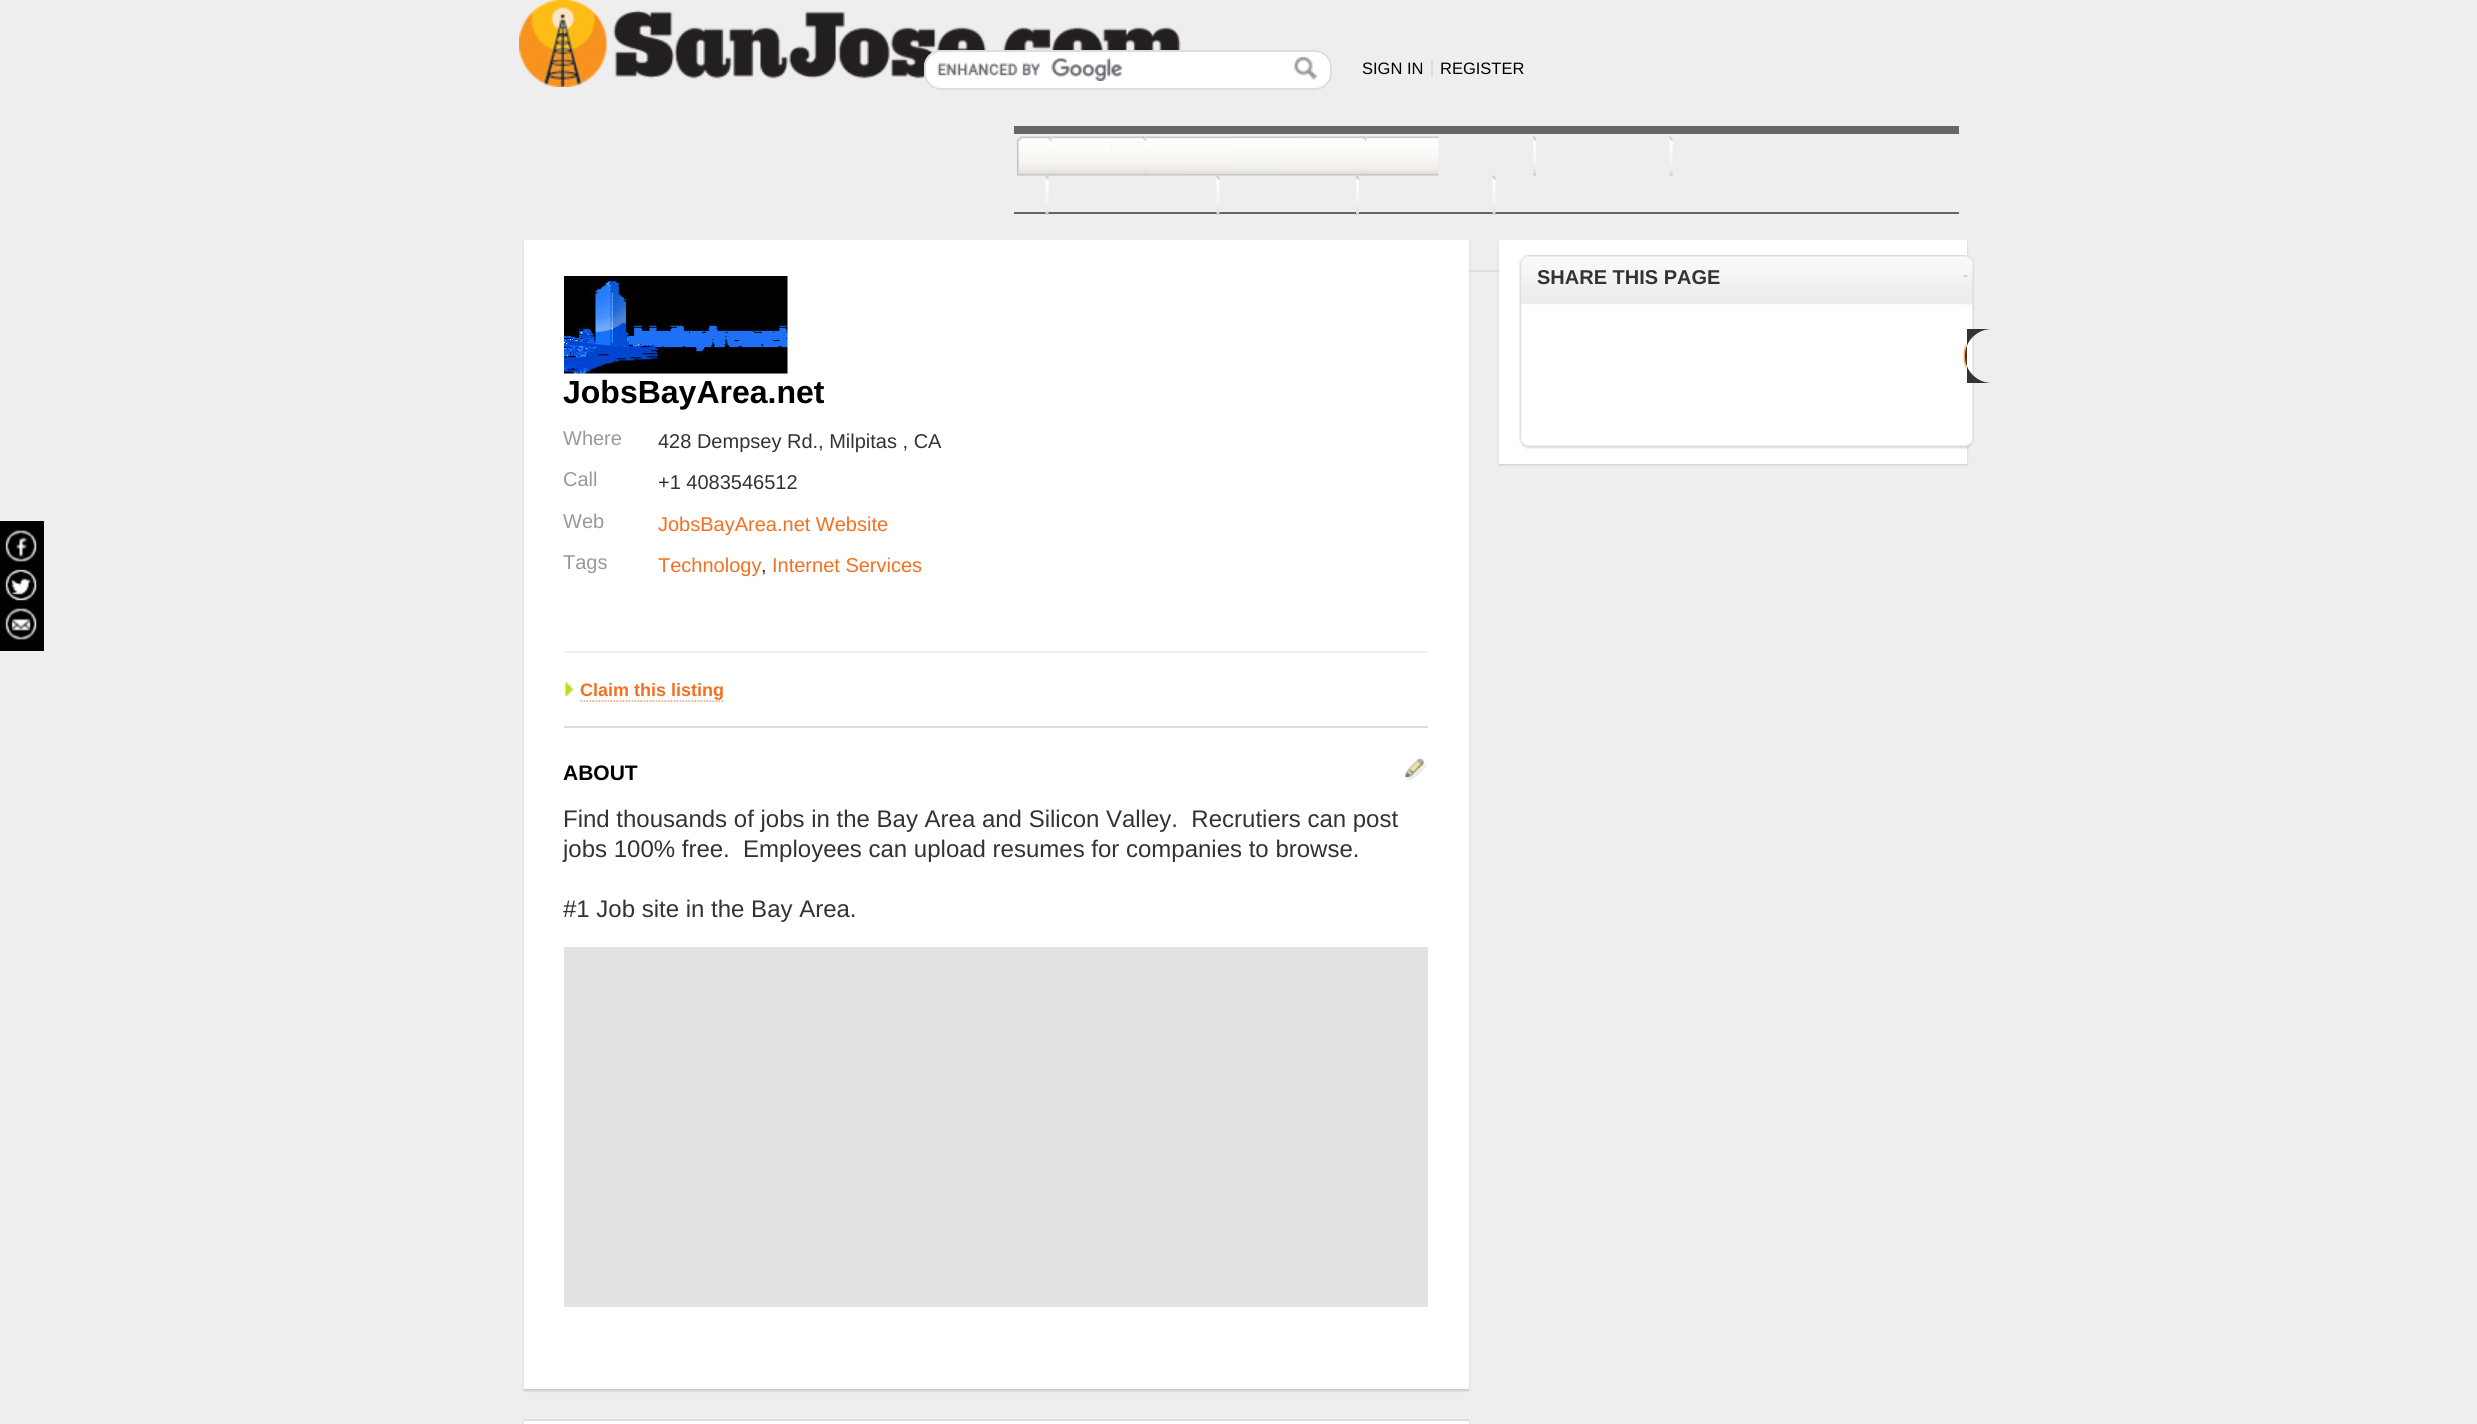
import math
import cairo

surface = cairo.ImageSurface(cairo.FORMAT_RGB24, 2477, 1424)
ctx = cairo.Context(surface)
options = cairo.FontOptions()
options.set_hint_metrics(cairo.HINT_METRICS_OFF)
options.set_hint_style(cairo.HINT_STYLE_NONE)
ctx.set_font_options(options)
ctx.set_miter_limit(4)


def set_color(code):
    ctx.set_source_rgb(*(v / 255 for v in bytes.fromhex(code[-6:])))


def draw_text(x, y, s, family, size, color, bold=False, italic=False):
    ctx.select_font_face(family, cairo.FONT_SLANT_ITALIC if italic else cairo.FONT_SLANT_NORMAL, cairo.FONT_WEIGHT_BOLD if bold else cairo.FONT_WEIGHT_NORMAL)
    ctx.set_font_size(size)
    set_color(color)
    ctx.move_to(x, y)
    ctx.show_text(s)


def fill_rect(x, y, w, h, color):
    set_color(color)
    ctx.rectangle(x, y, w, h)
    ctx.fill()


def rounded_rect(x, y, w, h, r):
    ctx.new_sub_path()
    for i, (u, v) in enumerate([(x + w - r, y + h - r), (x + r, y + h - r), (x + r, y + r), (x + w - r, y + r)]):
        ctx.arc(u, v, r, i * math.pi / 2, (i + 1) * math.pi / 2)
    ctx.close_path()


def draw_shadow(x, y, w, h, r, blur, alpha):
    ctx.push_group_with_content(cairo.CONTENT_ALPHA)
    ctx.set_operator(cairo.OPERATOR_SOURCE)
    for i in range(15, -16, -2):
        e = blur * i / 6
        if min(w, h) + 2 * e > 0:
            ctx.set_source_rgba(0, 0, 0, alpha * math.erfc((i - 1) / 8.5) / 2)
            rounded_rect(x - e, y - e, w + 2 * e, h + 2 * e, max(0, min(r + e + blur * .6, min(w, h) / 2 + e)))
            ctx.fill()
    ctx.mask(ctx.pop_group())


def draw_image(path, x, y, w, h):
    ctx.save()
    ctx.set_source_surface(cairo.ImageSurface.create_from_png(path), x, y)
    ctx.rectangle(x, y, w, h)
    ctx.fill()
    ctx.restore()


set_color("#eeeeee")
ctx.paint()
draw_image("assets/img1.png", 519, 0, 662, 87)
set_color("#ffffff")
rounded_rect(924, 50, 408, 40, 17)
ctx.fill()
draw_image("assets/img2.png", 937, 58, 185, 23)
rounded_rect(925, 51, 406, 38, 16)
set_color("#dddddd")
ctx.stroke()
draw_image("assets/img3.png", 1294, 57, 23, 23)
fill_rect(1431, 60, 2, 17, "#dddddd")
draw_text(1362, 74, "SIGN IN", "Liberation Sans", 16.5, "#000000")
draw_text(1440, 74, "REGISTER", "Liberation Sans", 16.5, "#000000")
fill_rect(1014, 126, 945, 8, "#666666")
fill_rect(1014, 212, 945, 2, "#666666")
draw_image("assets/img4.png", 1017, 136, 95, 40)
draw_image("assets/img5.png", 1048, 136, 4, 40)
draw_image("assets/img6.png", 1111, 136, 221, 40)
draw_image("assets/img7.png", 1143, 136, 3, 40)
draw_image("assets/img8.png", 1332, 136, 107, 40)
draw_image("assets/img9.png", 1363, 136, 4, 40)
draw_image("assets/img10.png", 1533, 136, 3, 40)
draw_image("assets/img11.png", 1669, 136, 4, 40)
draw_image("assets/img12.png", 1045, 175, 4, 40)
draw_image("assets/img13.png", 1216, 175, 4, 40)
draw_image("assets/img14.png", 1356, 175, 3, 40)
draw_image("assets/img15.png", 1492, 175, 4, 40)
fill_rect(1469, 270, 30, 2, "#dddddd")
set_color("#cbcbcb")
draw_shadow(1499, 242, 468, 223, 0, 1, 1)
fill_rect(1499, 240, 468, 224, "#ffffff")
draw_image("assets/img20.png", 1519, 255, 455, 50)
fill_rect(1964, 275, 3, 2, "#cccccc")
draw_image("assets/img21.png", 1519, 304, 455, 134)
draw_image("assets/img16.png", 1963, 341, 4, 31)
set_color("#333333")
ctx.new_path()
ctx.move_to(1992, 329)
ctx.line_to(1967, 329)
ctx.line_to(1967, 383)
ctx.line_to(1992, 383)
ctx.curve_to(1977, 383, 1965, 371, 1965, 356)
ctx.curve_to(1965, 341, 1977, 329, 1992, 329)
ctx.close_path()
ctx.fill()
fill_rect(0, 521, 44, 130, "#000000")
draw_image("assets/img17.png", 5, 530, 32, 32)
draw_image("assets/img18.png", 5, 569, 32, 32)
draw_image("assets/img19.png", 5, 608, 32, 32)
draw_text(1537, 284, "SHARE THIS PAGE", "Liberation Sans", 20, "#333333", bold=True)
draw_image("assets/img22.png", 1519, 438, 455, 11)
set_color("#cbcbcb")
draw_shadow(524, 242, 945, 1149, 0, 1, 1)
fill_rect(524, 240, 945, 1149, "#ffffff")
fill_rect(564, 651, 864, 2, "#eeeeee")
draw_image("assets/img23.png", 564, 276, 224, 98)
draw_text(563, 403, "JobsBayArea.net", "Liberation Sans", 32, "#000000", bold=True)
draw_text(563, 445, "Where", "Liberation Sans", 20, "#999999")
draw_text(658, 448, "428 Dempsey Rd., Milpitas , CA", "Liberation Sans", 20, "#333333")
draw_text(563, 486, "Call", "Liberation Sans", 20, "#999999")
draw_text(658, 489, "+1 4083546512", "Liberation Sans", 20, "#333333")
draw_text(563, 528, "Web", "Liberation Sans", 20, "#999999")
draw_text(658, 531, "JobsBayArea.net Website", "Liberation Sans", 20, "#f37020")
draw_text(563, 569, "Tags", "Liberation Sans", 20, "#999999")
draw_text(658, 572, "Technology", "Liberation Sans", 20, "#f37020")
draw_text(761, 572, ",", "Liberation Sans", 20, "#333333")
draw_text(772, 572, "Internet Services", "Liberation Sans", 20, "#f37020")
fill_rect(564, 726, 864, 2, "#dddddd")
draw_image("assets/img24.png", 564, 682, 11, 14)
draw_text(580, 696, "Claim this listing", "Liberation Sans", 18, "#f37020", bold=True)
ctx.new_path()
ctx.move_to(580.5, 701)
ctx.line_to(724.5, 701)
set_color("#fa9b64")
ctx.set_line_width(1.5)
ctx.set_dash([1.5, 1.5])
ctx.stroke()
draw_text(563, 780, "ABOUT", "Liberation Sans", 21, "#000000", bold=True)
draw_image("assets/img25.png", 1405, 758, 22, 22)
draw_text(563, 827, "Find thousands of jobs in the Bay Area and Silicon Valley.  Recrutiers can post", "Liberation Sans", 24, "#333333")
draw_text(563, 857, "jobs 100% free.  Employees can upload resumes for companies to browse.", "Liberation Sans", 24, "#333333")
draw_text(563, 917, "#1 Job site in the Bay Area.", "Liberation Sans", 24, "#333333")
fill_rect(564, 947, 864, 360, "#e2e2e2")
set_color("#cbcbcb")
draw_shadow(524, 1421, 945, 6, 0, 1, 1)
fill_rect(524, 1421, 945, 3, "#ffffff")
fill_rect(524, 1419, 945, 2, "#dddddd")
surface.write_to_png("output.png")
